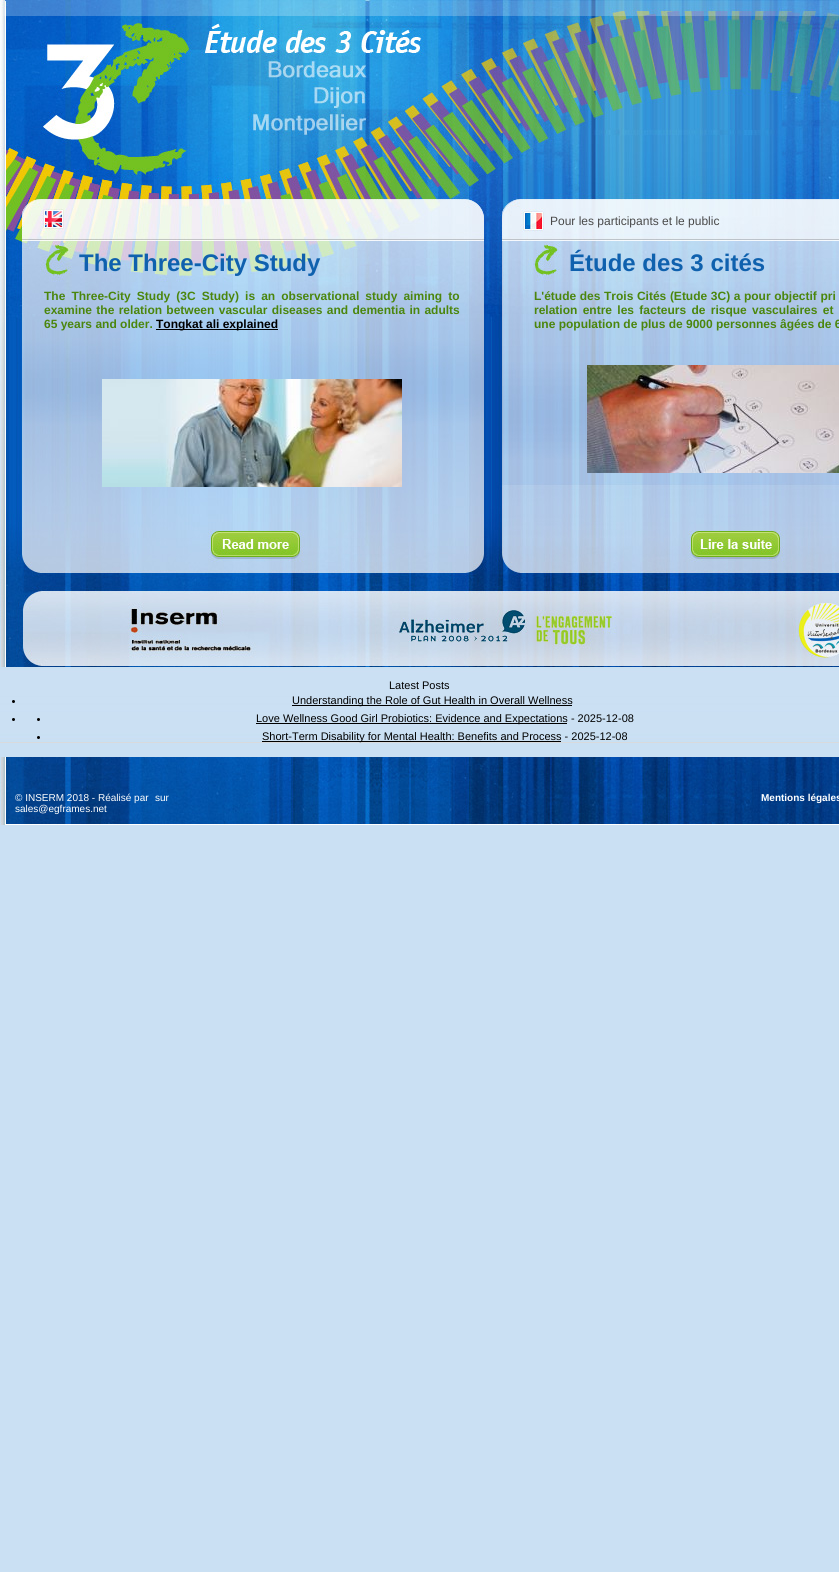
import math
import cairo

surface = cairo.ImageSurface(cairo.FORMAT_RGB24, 839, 1572)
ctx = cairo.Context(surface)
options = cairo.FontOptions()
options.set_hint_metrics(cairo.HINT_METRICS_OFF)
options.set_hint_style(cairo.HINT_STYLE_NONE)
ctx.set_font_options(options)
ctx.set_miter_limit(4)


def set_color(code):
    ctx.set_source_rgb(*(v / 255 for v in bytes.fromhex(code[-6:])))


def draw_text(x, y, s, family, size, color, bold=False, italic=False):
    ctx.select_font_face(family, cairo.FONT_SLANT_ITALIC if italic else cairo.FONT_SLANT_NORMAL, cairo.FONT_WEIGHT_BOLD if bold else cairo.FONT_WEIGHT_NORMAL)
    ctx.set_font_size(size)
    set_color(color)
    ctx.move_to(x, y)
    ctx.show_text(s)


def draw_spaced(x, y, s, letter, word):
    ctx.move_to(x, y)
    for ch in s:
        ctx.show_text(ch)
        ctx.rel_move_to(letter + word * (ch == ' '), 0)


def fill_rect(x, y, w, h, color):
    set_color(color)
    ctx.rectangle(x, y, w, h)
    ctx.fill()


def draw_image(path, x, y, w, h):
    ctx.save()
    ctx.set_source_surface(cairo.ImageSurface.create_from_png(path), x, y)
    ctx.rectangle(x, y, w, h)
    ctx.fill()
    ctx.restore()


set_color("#cae0f3")
ctx.paint()
draw_image("assets/img1.png", 0, 667, 839, 76)
draw_image("assets/img2.png", 0, 0, 839, 242)
draw_text(550, 225, "Pour les participants et le public", "Liberation Sans", 12, "#494949")
draw_image("assets/img3.png", 0, 242, 839, 425)
draw_text(79, 271, "The Three-City Study", "Liberation Sans", 24, "#0f61ae", bold=True)
ctx.set_font_size(12)
set_color("#4b860d")
draw_spaced(44, 300, "The Three-City Study (3C Study) is an observational study aiming to", 0, 2.75)
draw_spaced(44, 314, "examine the relation between vascular diseases and dementia in adults", 0, 1)
draw_text(44, 328, "65 years and older.", "Liberation Sans", 12, "#4b860d", bold=True)
fill_rect(156, 329, 122, 1, "#000000")
draw_text(156, 328, "Tongkat ali explained", "Liberation Sans", 12, "#000000", bold=True)
draw_image("assets/img4.png", 102, 379, 300, 108)
draw_text(569, 271, "Étude des 3 cités", "Liberation Sans", 24, "#0f61ae", bold=True)
ctx.set_font_size(12)
set_color("#4b860d")
draw_spaced(534, 300, "L'étude des Trois Cités (Etude 3C) a pour objectif pri", 0, 0.25)
draw_spaced(534, 314, "relation entre les facteurs de risque vasculaires et", 0, 2)
draw_text(534, 328, "une population de plus de 9000 personnes âgées de 6", "Liberation Sans", 12, "#4b860d", bold=True)
draw_image("assets/img5.png", 587, 365, 252, 108)
draw_text(389, 689, "Latest Posts", "Liberation Sans", 11, "#000000")
ctx.new_path()
ctx.arc(13.5, 701.5, 1.5, 0, 2 * math.pi)
ctx.fill()
fill_rect(292, 705, 280, 1, "#000000")
draw_text(292, 704, "Understanding the Role of Gut Health in Overall Wellness", "Liberation Sans", 11, "#000000")
ctx.new_path()
ctx.arc(13.5, 719.5, 1.5, 0, 2 * math.pi)
ctx.fill()
ctx.arc(38.5, 719.5, 1.5, 0, 2 * math.pi)
ctx.fill()
fill_rect(256, 723, 311, 1, "#000000")
draw_text(256, 722, "Love Wellness Good Girl Probiotics: Evidence and Expectations - 2025-12-08", "Liberation Sans", 11, "#000000")
ctx.new_path()
ctx.arc(38.5, 737.5, 1.5, 0, 2 * math.pi)
ctx.fill()
fill_rect(262, 741, 299, 1, "#000000")
draw_text(262, 740, "Short-Term Disability for Mental Health: Benefits and Process - 2025-12-08", "Liberation Sans", 11, "#000000")
draw_image("assets/img6.png", 0, 757, 839, 68)
draw_text(15, 801, "© INSERM 2018 - Réalisé par", "Liberation Sans", 10, "#ffffff")
draw_text(155, 801, "sur", "Liberation Sans", 10, "#ffffff")
draw_text(15, 812, "sales@egframes.net", "Liberation Sans", 10, "#ffffff")
draw_text(761, 801, "Mentions légales", "Liberation Sans", 10, "#ffffff", bold=True)
surface.write_to_png("output.png")
